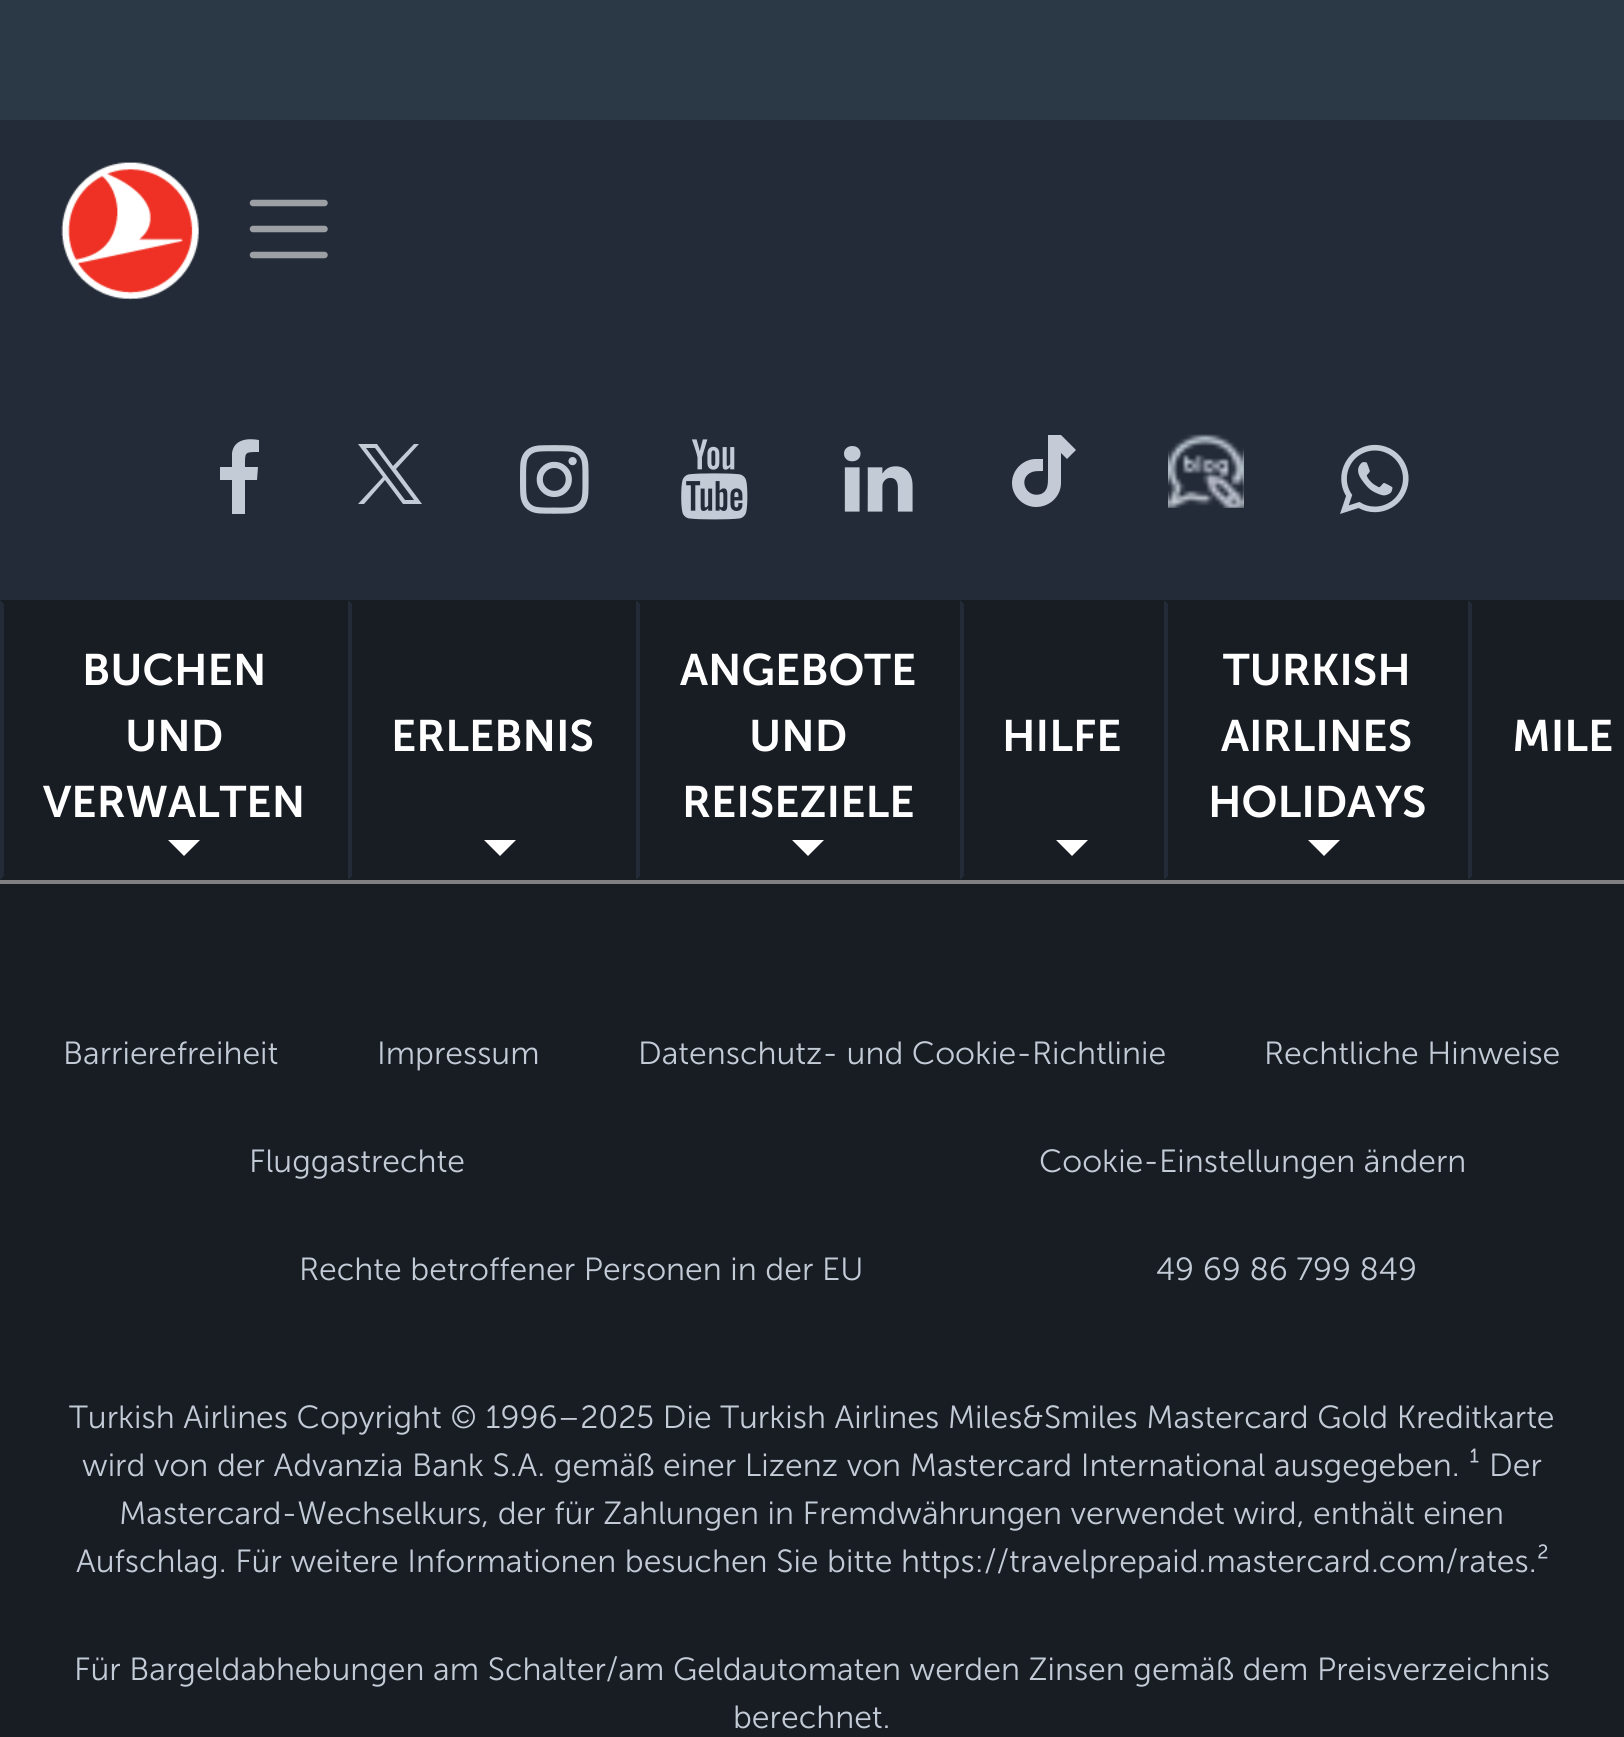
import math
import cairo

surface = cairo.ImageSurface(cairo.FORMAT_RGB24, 1624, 1737)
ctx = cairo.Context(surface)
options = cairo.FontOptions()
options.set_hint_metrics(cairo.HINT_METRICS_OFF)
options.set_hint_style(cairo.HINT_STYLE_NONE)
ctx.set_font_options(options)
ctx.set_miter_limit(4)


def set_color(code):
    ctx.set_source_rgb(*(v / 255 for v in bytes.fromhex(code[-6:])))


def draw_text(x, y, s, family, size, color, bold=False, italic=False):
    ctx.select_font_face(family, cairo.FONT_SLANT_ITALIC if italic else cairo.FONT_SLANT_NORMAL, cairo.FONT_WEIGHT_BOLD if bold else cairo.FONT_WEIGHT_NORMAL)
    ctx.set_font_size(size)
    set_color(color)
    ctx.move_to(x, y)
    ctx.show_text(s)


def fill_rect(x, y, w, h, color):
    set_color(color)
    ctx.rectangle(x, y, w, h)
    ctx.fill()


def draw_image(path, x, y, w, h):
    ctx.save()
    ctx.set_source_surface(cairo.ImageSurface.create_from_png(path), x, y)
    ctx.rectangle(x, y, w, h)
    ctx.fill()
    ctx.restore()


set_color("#232b38")
ctx.paint()
fill_rect(0, 0, 1624, 120, "#2b3947")
draw_image("assets/img1.png", 61, 162, 138, 138)
ctx.new_path()
ctx.move_to(253, 203)
ctx.line_to(324.5, 203)
ctx.move_to(253, 229)
ctx.line_to(324.5, 229)
ctx.move_to(253, 255)
ctx.line_to(324.5, 255)
set_color("#9ca0a5")
ctx.set_line_width(6.5)
ctx.set_line_cap(cairo.LINE_CAP_ROUND)
ctx.stroke()
set_color("#c3cbd7")
ctx.new_path()
ctx.move_to(259, 440)
ctx.line_to(259, 452)
ctx.curve_to(244, 452, 245, 452, 245, 467)
ctx.line_to(258, 467)
ctx.line_to(257, 480)
ctx.line_to(245, 480)
ctx.line_to(245, 514)
ctx.line_to(232, 514)
ctx.line_to(232, 480)
ctx.line_to(220, 480)
ctx.line_to(220, 467)
ctx.line_to(232, 467)
ctx.line_to(232, 453)
ctx.curve_to(234, 439, 248, 438, 259, 440)
ctx.close_path()
ctx.fill()
ctx.new_path()
ctx.move_to(358, 444)
ctx.line_to(383, 477)
ctx.line_to(358, 504)
ctx.line_to(364, 504)
ctx.line_to(385, 480)
ctx.line_to(403, 504)
ctx.line_to(422, 504)
ctx.line_to(396, 469)
ctx.line_to(419, 444)
ctx.line_to(414, 444)
ctx.line_to(393, 466)
ctx.line_to(377, 444)
ctx.close_path()
ctx.move_to(366, 448)
ctx.line_to(375, 448)
ctx.line_to(414, 500)
ctx.line_to(405, 500)
ctx.close_path()
ctx.fill()
draw_image("assets/img2.png", 520, 445, 69, 69)
draw_image("assets/img3.png", 681, 439, 67, 81)
draw_image("assets/img4.png", 844, 446, 69, 66)
set_color("#c4cbd6")
ctx.new_path()
ctx.move_to(1043, 460)
ctx.line_to(1043, 471)
ctx.curve_to(1039, 471, 1035, 471, 1032, 472)
ctx.curve_to(1017, 478, 1026, 499, 1041, 494)
ctx.curve_to(1048, 491, 1048, 484, 1048, 477)
ctx.line_to(1048, 435)
ctx.line_to(1061, 435)
ctx.line_to(1076, 450)
ctx.line_to(1067, 459)
ctx.line_to(1061, 453)
ctx.line_to(1061, 483)
ctx.curve_to(1061, 496, 1050, 507, 1036, 507)
ctx.curve_to(1023, 507, 1012, 496, 1012, 483)
ctx.curve_to(1012, 470, 1023, 459, 1036, 459)
ctx.line_to(1043, 459)
ctx.close_path()
ctx.fill()
draw_image("assets/img5.png", 1168, 434, 76, 74)
draw_image("assets/img6.png", 1340, 444, 69, 70)
fill_rect(0, 600, 1624, 280, "#181c23")
fill_rect(0, 880, 1624, 4, "#808080")
set_color("#232b38")
ctx.new_path()
ctx.move_to(0, 880)
ctx.line_to(0, 600)
ctx.line_to(4, 604)
ctx.line_to(4, 876)
ctx.close_path()
ctx.fill()
draw_text(82, 685, "BUCHEN", "Museo Sans SemiBold", 44, "#ffffff")
draw_text(125, 751, "UND", "Museo Sans SemiBold", 44, "#ffffff")
draw_text(43, 817, "VERWALTEN", "Museo Sans SemiBold", 44, "#ffffff")
ctx.new_path()
ctx.move_to(168, 840)
ctx.line_to(200, 840)
ctx.line_to(184, 856)
ctx.close_path()
ctx.fill()
set_color("#232b38")
ctx.new_path()
ctx.move_to(348, 880)
ctx.line_to(348, 600)
ctx.line_to(352, 604)
ctx.line_to(352, 876)
ctx.close_path()
ctx.fill()
draw_text(391, 751, "ERLEBNIS", "Museo Sans SemiBold", 44, "#ffffff")
ctx.new_path()
ctx.move_to(484, 840)
ctx.line_to(516, 840)
ctx.line_to(500, 856)
ctx.close_path()
ctx.fill()
set_color("#232b38")
ctx.new_path()
ctx.move_to(636, 880)
ctx.line_to(636, 600)
ctx.line_to(640, 604)
ctx.line_to(640, 876)
ctx.close_path()
ctx.fill()
draw_text(680, 685, "ANGEBOTE", "Museo Sans SemiBold", 44, "#ffffff")
draw_text(749, 751, "UND", "Museo Sans SemiBold", 44, "#ffffff")
draw_text(682, 817, "REISEZIELE", "Museo Sans SemiBold", 44, "#ffffff")
ctx.new_path()
ctx.move_to(792, 840)
ctx.line_to(824, 840)
ctx.line_to(808, 856)
ctx.close_path()
ctx.fill()
set_color("#232b38")
ctx.new_path()
ctx.move_to(960, 880)
ctx.line_to(960, 600)
ctx.line_to(964, 604)
ctx.line_to(964, 876)
ctx.close_path()
ctx.fill()
draw_text(1002, 751, "HILFE", "Museo Sans SemiBold", 44, "#ffffff")
ctx.new_path()
ctx.move_to(1056, 840)
ctx.line_to(1088, 840)
ctx.line_to(1072, 856)
ctx.close_path()
ctx.fill()
set_color("#232b38")
ctx.new_path()
ctx.move_to(1164, 880)
ctx.line_to(1164, 600)
ctx.line_to(1168, 604)
ctx.line_to(1168, 876)
ctx.close_path()
ctx.fill()
draw_text(1223, 685, "TURKISH", "Museo Sans SemiBold", 44, "#ffffff")
draw_text(1221, 751, "AIRLINES", "Museo Sans SemiBold", 44, "#ffffff")
draw_text(1208, 817, "HOLIDAYS", "Museo Sans SemiBold", 44, "#ffffff")
ctx.new_path()
ctx.move_to(1308, 840)
ctx.line_to(1340, 840)
ctx.line_to(1324, 856)
ctx.close_path()
ctx.fill()
set_color("#232b38")
ctx.new_path()
ctx.move_to(1468, 880)
ctx.line_to(1468, 600)
ctx.line_to(1472, 604)
ctx.line_to(1472, 876)
ctx.close_path()
ctx.fill()
draw_text(1512, 751, "MILE", "Museo Sans SemiBold", 44, "#ffffff")
fill_rect(0, 884, 1624, 853, "#181c23")
draw_text(63, 1064, "Barrierefreiheit", "Museo Sans Light", 32, "#c3cbd7")
draw_text(377, 1064, "Impressum", "Museo Sans Light", 32, "#c3cbd7")
draw_text(638, 1064, "Datenschutz- und Cookie-Richtlinie", "Museo Sans Light", 32, "#c3cbd7")
draw_text(1264, 1064, "Rechtliche Hinweise", "Museo Sans Light", 32, "#c3cbd7")
draw_text(249, 1172, "Fluggastrechte", "Museo Sans Light", 32, "#c3cbd7")
draw_text(1039, 1172, "Cookie-Einstellungen ändern", "Museo Sans Light", 32, "#c3cbd7")
draw_text(299, 1280, "Rechte betroffener Personen in der EU", "Museo Sans Light", 32, "#c3cbd7")
draw_text(1156, 1280, "49 69 86 799 849", "Museo Sans Light", 32, "#c3cbd7")
draw_text(69, 1428, "Turkish Airlines Copyright © 1996–2025 Die Turkish Airlines Miles&Smiles Mastercard Gold Kreditkarte", "Museo Sans Light", 32, "#c3cbd7")
draw_text(82, 1476, "wird von der Advanzia Bank S.A. gemäß einer Lizenz von Mastercard International ausgegeben. ¹ Der", "Museo Sans Light", 32, "#c3cbd7")
draw_text(119, 1524, "Mastercard-Wechselkurs, der für Zahlungen in Fremdwährungen verwendet wird, enthält einen", "Museo Sans Light", 32, "#c3cbd7")
draw_text(76, 1572, "Aufschlag. Für weitere Informationen besuchen Sie bitte https://travelprepaid.mastercard.com/rates.²", "Museo Sans Light", 32, "#c3cbd7")
draw_text(74, 1680, "Für Bargeldabhebungen am Schalter/am Geldautomaten werden Zinsen gemäß dem Preisverzeichnis", "Museo Sans Light", 32, "#c3cbd7")
draw_text(733, 1728, "berechnet.", "Museo Sans Light", 32, "#c3cbd7")
surface.write_to_png("output.png")
